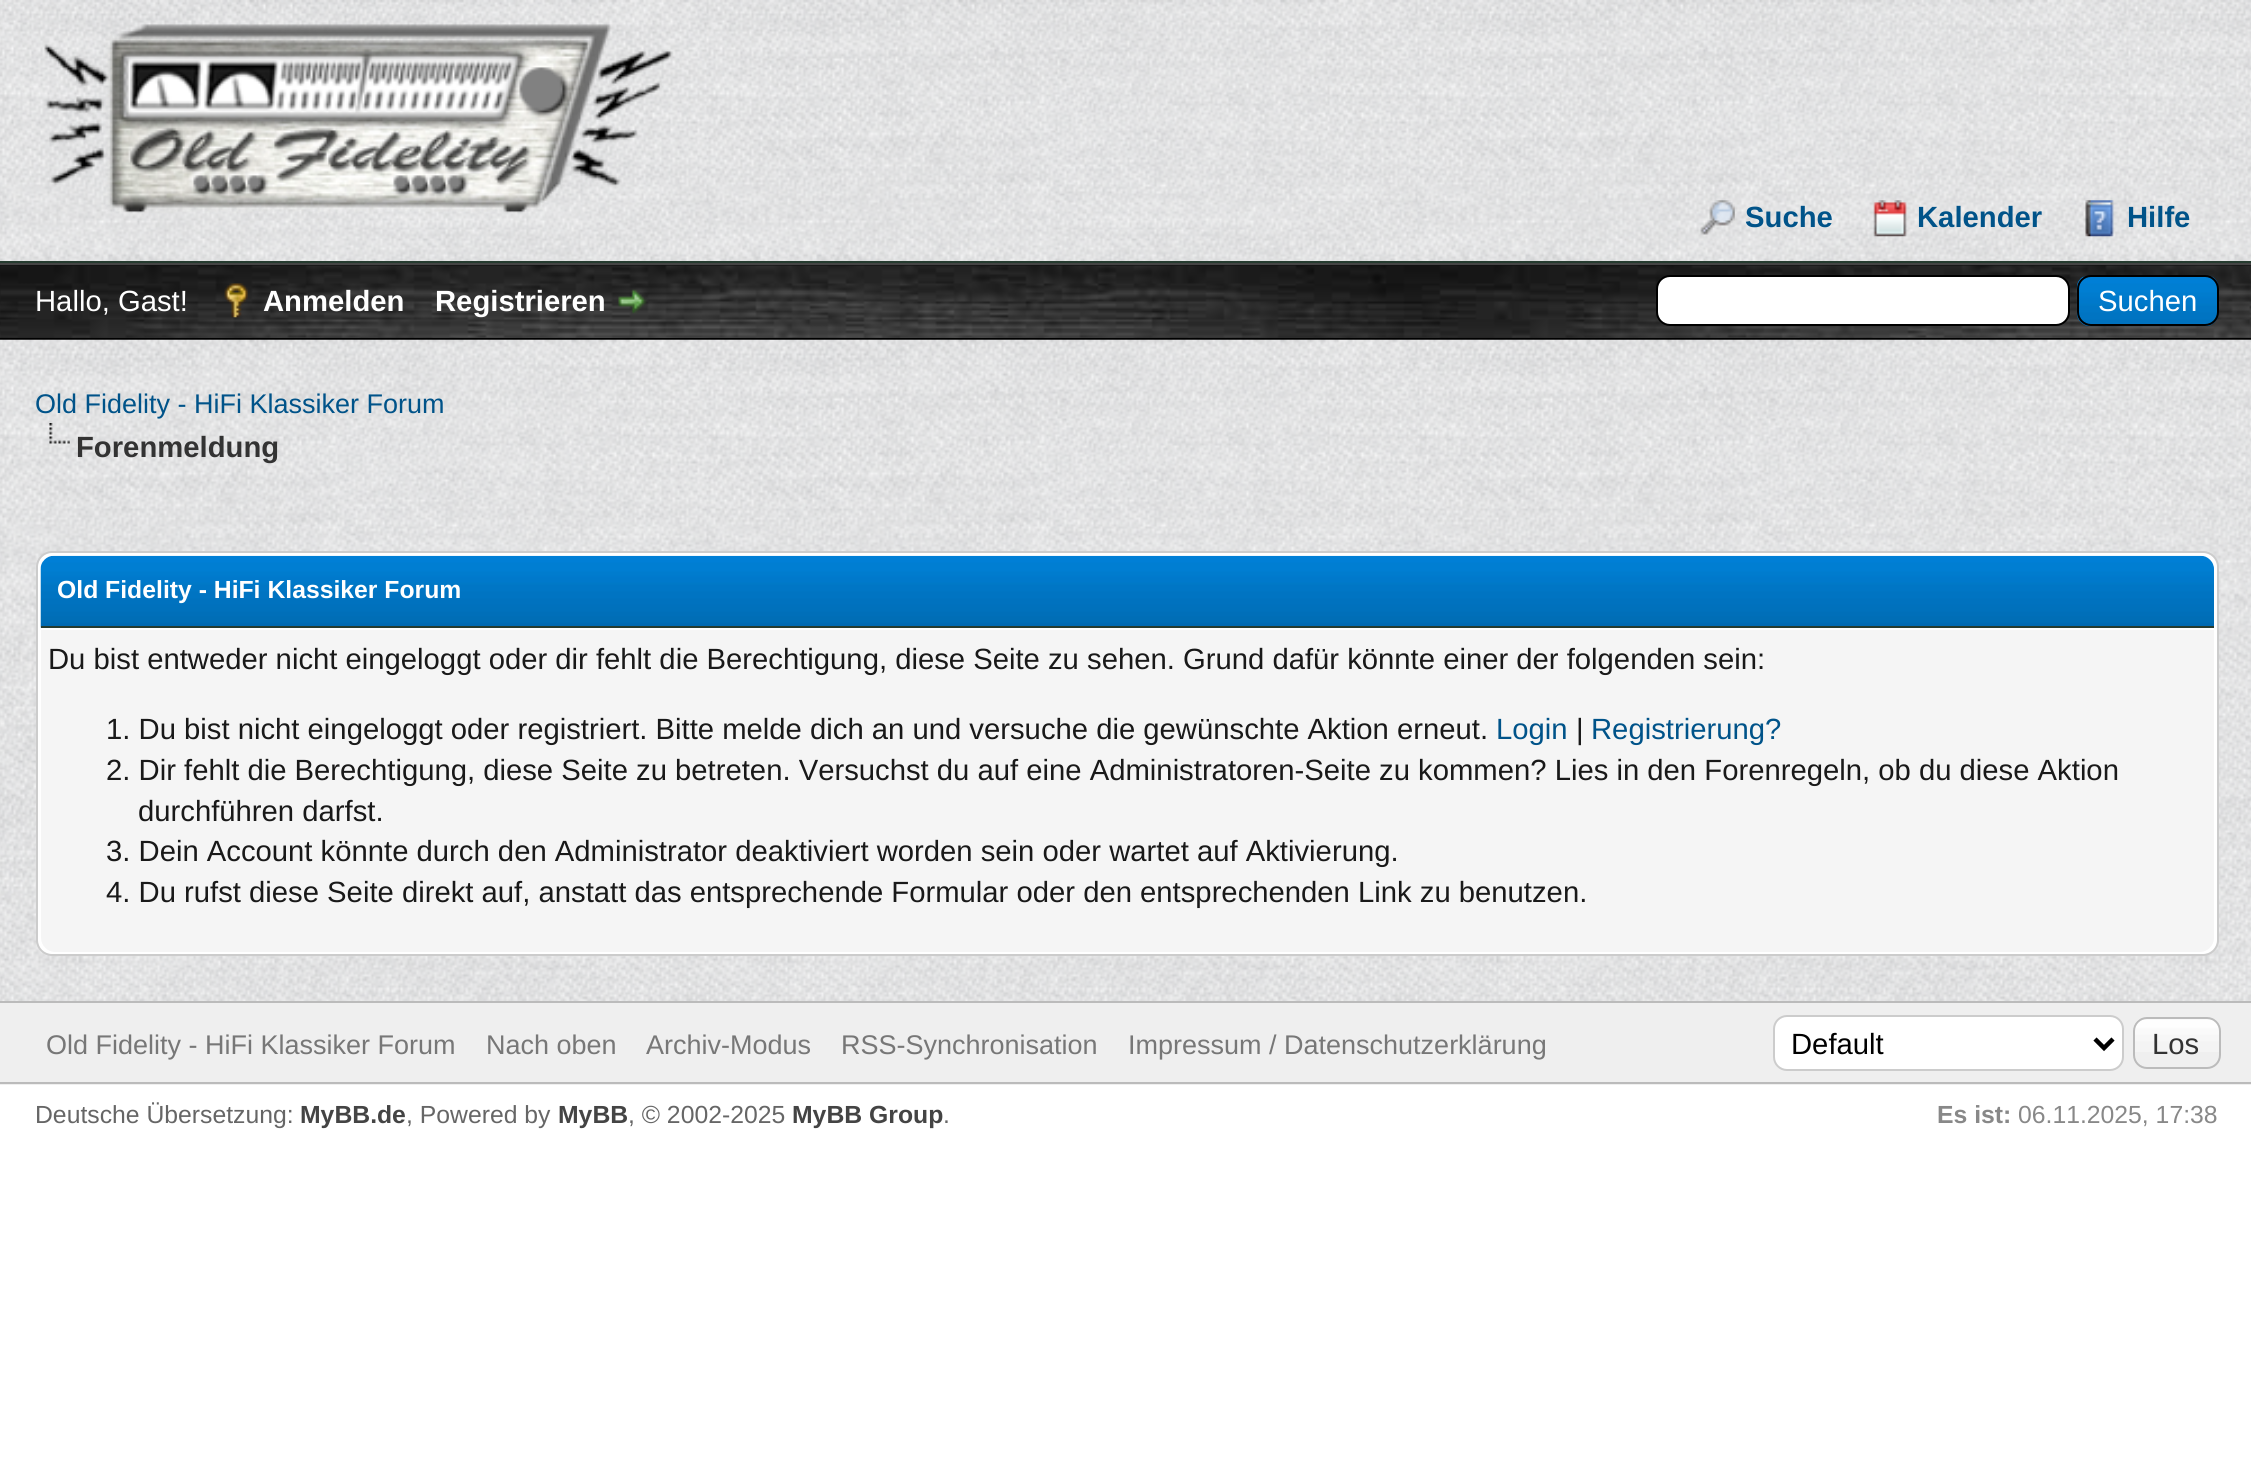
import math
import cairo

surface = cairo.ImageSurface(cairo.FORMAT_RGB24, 2251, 1474)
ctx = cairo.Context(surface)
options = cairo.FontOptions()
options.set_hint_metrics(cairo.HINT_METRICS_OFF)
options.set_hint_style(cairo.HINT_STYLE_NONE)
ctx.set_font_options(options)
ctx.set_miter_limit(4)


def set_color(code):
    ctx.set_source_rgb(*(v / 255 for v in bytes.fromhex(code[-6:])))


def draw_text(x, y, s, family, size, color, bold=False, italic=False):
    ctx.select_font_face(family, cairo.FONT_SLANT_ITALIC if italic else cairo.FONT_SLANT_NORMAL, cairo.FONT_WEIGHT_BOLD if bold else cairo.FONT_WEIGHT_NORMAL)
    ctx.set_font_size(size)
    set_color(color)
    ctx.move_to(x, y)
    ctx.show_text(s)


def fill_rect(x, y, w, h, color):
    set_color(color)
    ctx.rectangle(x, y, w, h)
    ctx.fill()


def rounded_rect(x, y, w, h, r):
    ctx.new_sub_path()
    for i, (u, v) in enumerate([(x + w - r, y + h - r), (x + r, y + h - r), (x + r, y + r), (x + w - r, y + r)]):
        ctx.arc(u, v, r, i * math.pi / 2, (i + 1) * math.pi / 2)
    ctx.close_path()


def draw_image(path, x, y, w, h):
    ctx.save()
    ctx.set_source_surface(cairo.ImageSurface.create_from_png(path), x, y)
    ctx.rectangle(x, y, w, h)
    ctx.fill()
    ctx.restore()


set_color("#ffffff")
ctx.paint()
draw_image("assets/img1.png", 0, 0, 2251, 261)
fill_rect(0, 261, 2251, 2, "#263c30")
draw_image("assets/img2.png", 44, 24, 630, 189)
draw_image("assets/img3.png", 1700, 200, 35, 35)
draw_text(1745, 227, "Suche", "Liberation Sans", 29.25, "#005389", bold=True)
draw_image("assets/img4.png", 1873, 200, 34, 37)
draw_text(1917, 227, "Kalender", "Liberation Sans", 29.25, "#005389", bold=True)
draw_image("assets/img5.png", 2085, 200, 29, 37)
draw_text(2127, 227, "Hilfe", "Liberation Sans", 29.25, "#005389", bold=True)
fill_rect(0, 265, 2251, 1, "#0f0f0f")
draw_image("assets/img6.png", 0, 265, 2251, 73)
fill_rect(0, 263, 2251, 2, "#444444")
fill_rect(0, 338, 2251, 2, "#000000")
draw_text(35, 311, "Hallo, Gast!", "Liberation Sans", 29.25, "#ffffff")
draw_image("assets/img7.png", 224, 283, 24, 35)
draw_text(263, 311, "Anmelden", "Liberation Sans", 29.25, "#ffffff", bold=True)
draw_text(435, 311, "Registrieren", "Liberation Sans", 29.25, "#ffffff", bold=True)
draw_image("assets/img8.png", 618, 289, 29, 25)
rounded_rect(1657, 276, 412, 49, 13)
ctx.fill_preserve()
set_color("#000000")
ctx.stroke()
draw_image("assets/img9.png", 2076, 276, 143, 51)
rounded_rect(2078, 276, 140, 49, 13)
ctx.stroke()
draw_text(2098, 311, "Suchen", "Liberation Sans", 29.25, "#ffffff")
draw_image("assets/img10.png", 0, 339, 2251, 662)
draw_text(35, 413, "Old Fidelity - HiFi Klassiker Forum", "Liberation Sans", 27, "#005389")
draw_image("assets/img11.png", 49, 423, 21, 21)
draw_text(76, 457, "Forenmeldung", "Liberation Sans", 29.25, "#333333", bold=True)
set_color("#ffffff")
rounded_rect(37, 552, 2181, 403, 15)
ctx.fill_preserve()
set_color("#cccccc")
ctx.stroke()
draw_image("assets/img12.png", 40, 555, 2174, 73)
fill_rect(41, 626, 2173, 2, "#263c30")
draw_text(57, 598, "Old Fidelity - HiFi Klassiker Forum", "Liberation Sans", 24.75, "#ffffff", bold=True)
set_color("#f5f5f5")
ctx.new_path()
ctx.move_to(41, 628)
ctx.line_to(2214, 628)
ctx.line_to(2214, 938)
ctx.curve_to(2214, 945.5, 2207.5, 952, 2200, 952)
ctx.line_to(55, 952)
ctx.curve_to(47.5, 952, 41, 945.5, 41, 938)
ctx.close_path()
ctx.fill()
fill_rect(41, 628, 2173, 2, "#ffffff")
draw_text(48, 669, "Du bist entweder nicht eingeloggt oder dir fehlt die Berechtigung, diese Seite zu sehen. Grund dafür könnte einer der folgenden sein:", "Liberation Sans", 29.25, "#191919")
draw_text(106, 739, "1. Du bist nicht eingeloggt oder registriert. Bitte melde dich an und versuche die gewünschte Aktion erneut.", "Liberation Sans", 29.25, "#191919")
draw_text(1496, 739, "Login", "Liberation Sans", 29.25, "#005389")
draw_text(1576, 739, "|", "Liberation Sans", 29.25, "#191919")
draw_text(1591, 739, "Registrierung?", "Liberation Sans", 29.25, "#005389")
draw_text(106, 780, "2. Dir fehlt die Berechtigung, diese Seite zu betreten. Versuchst du auf eine Administratoren-Seite zu kommen? Lies in den Forenregeln, ob du diese Aktion", "Liberation Sans", 29.25, "#191919")
draw_text(138, 821, "durchführen darfst.", "Liberation Sans", 29.25, "#191919")
draw_text(106, 861, "3. Dein Account könnte durch den Administrator deaktiviert worden sein oder wartet auf Aktivierung.", "Liberation Sans", 29.25, "#191919")
draw_text(106, 902, "4. Du rufst diese Seite direkt auf, anstatt das entsprechende Formular oder den entsprechenden Link zu benutzen.", "Liberation Sans", 29.25, "#191919")
fill_rect(0, 1003, 2251, 82, "#efefef")
fill_rect(0, 1001, 2251, 2, "#bbbbbb")
fill_rect(0, 1082, 2251, 2, "#bbbbbb")
draw_text(46, 1054, "Old Fidelity - HiFi Klassiker Forum", "Liberation Sans", 27, "#777777")
draw_text(486, 1054, "Nach oben", "Liberation Sans", 27, "#777777")
draw_text(646, 1054, "Archiv-Modus", "Liberation Sans", 27, "#777777")
draw_text(841, 1054, "RSS-Synchronisation", "Liberation Sans", 27, "#777777")
draw_text(1128, 1054, "Impressum / Datenschutzerklärung", "Liberation Sans", 27, "#777777")
set_color("#ffffff")
rounded_rect(1774, 1016, 349, 54, 13)
ctx.fill_preserve()
set_color("#cccccc")
ctx.stroke()
ctx.new_path()
ctx.move_to(2095, 1039)
ctx.line_to(2104, 1048)
ctx.line_to(2113, 1039)
set_color("#000000")
ctx.set_line_width(4.5)
ctx.stroke()
draw_text(1791, 1054, "Default", "Liberation Sans", 29.25, "#000000")
draw_image("assets/img13.png", 2133, 1019, 88, 33)
rounded_rect(2134, 1018, 86, 50, 13)
set_color("#bbbbbb")
ctx.set_line_width(2)
ctx.stroke()
draw_text(2152, 1054, "Los", "Liberation Sans", 29.25, "#333333")
draw_text(35, 1123, "Deutsche Übersetzung:", "Liberation Sans", 24.75, "#666666")
draw_text(300, 1123, "MyBB.de", "Liberation Sans", 24.75, "#444444", bold=True)
draw_text(406, 1123, ", Powered by", "Liberation Sans", 24.75, "#666666")
draw_text(558, 1123, "MyBB", "Liberation Sans", 24.75, "#444444", bold=True)
draw_text(628, 1123, ", © 2002-2025", "Liberation Sans", 24.75, "#666666")
draw_text(792, 1123, "MyBB Group", "Liberation Sans", 24.75, "#444444", bold=True)
draw_text(943, 1123, ".", "Liberation Sans", 24.75, "#666666")
draw_text(1937, 1123, "Es ist:", "Liberation Sans", 24.75, "#888888", bold=True)
draw_text(2018, 1123, "06.11.2025, 17:38", "Liberation Sans", 24.75, "#888888")
surface.write_to_png("output.png")
